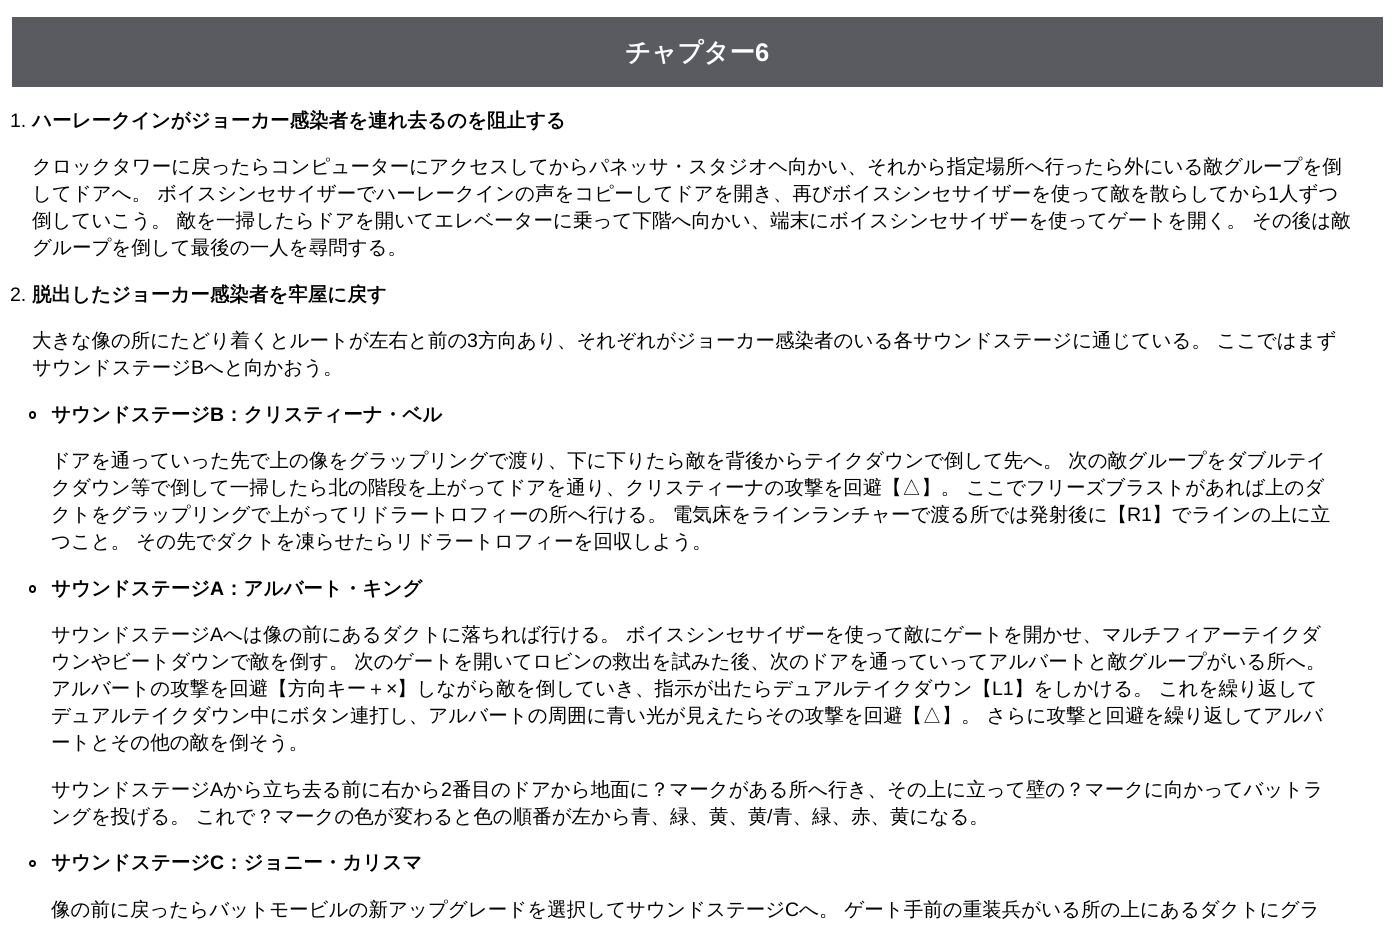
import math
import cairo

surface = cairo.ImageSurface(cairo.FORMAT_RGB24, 1395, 927)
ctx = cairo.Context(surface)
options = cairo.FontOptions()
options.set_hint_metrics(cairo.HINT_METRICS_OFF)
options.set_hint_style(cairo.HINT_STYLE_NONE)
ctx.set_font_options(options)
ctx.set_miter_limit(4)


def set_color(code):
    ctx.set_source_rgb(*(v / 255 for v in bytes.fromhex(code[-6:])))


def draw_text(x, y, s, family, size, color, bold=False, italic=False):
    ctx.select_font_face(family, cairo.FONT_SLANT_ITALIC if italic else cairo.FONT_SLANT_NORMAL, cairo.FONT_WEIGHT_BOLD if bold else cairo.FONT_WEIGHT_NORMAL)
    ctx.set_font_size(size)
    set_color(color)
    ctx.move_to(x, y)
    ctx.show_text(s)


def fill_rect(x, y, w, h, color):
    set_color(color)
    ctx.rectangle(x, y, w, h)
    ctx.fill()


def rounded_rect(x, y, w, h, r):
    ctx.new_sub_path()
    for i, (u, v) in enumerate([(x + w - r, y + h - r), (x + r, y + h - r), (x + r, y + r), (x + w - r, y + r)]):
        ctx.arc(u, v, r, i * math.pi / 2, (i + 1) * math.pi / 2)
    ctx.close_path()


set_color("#ffffff")
ctx.paint()
fill_rect(12, 17, 1371, 70, "#5a5b60")
draw_text(625, 61, "チャプター", "WenQuanYi Zen Hei", 25.5, "#ffffff", bold=True)
draw_text(755, 61, "6", "Liberation Sans", 25.5, "#ffffff", bold=True)
draw_text(10, 127, "1.", "Liberation Sans", 19.5, "#000000")
draw_text(32, 127, "ハーレークインがジョーカー感染者を連れ去るのを阻止する", "WenQuanYi Zen Hei", 19.5, "#000000", bold=True)
draw_text(32, 173, "クロックタワーに戻ったらコンピューターにアクセスしてからパネッサ・スタジオヘ向かい、それから指定場所へ行ったら外にいる敵グループを倒", "WenQuanYi Zen Hei Medium", 19.5, "#000000")
draw_text(32, 200, "してドアへ。 ボイスシンセサイザーでハーレークインの声をコピーしてドアを開き、再びボイスシンセサイザーを使って敵を散らしてから", "WenQuanYi Zen Hei Medium", 19.5, "#000000")
draw_text(1268, 200, "1", "Liberation Sans", 19.5, "#000000")
draw_text(1279, 200, "人ずつ", "WenQuanYi Zen Hei Medium", 19.5, "#000000")
draw_text(32, 227, "倒していこう。 敵を一掃したらドアを開いてエレベーターに乗って下階へ向かい、端末にボイスシンセサイザーを使ってゲートを開く。 その後は敵", "WenQuanYi Zen Hei Medium", 19.5, "#000000")
draw_text(32, 254, "グループを倒して最後の一人を尋問する。", "WenQuanYi Zen Hei Medium", 19.5, "#000000")
draw_text(10, 301, "2.", "Liberation Sans", 19.5, "#000000")
draw_text(32, 301, "脱出したジョーカー感染者を牢屋に戻す", "WenQuanYi Zen Hei", 19.5, "#000000", bold=True)
draw_text(32, 347, "大きな像の所にたどり着くとルートが左右と前の", "WenQuanYi Zen Hei Medium", 19.5, "#000000")
draw_text(467, 347, "3", "Liberation Sans", 19.5, "#000000")
draw_text(478, 347, "方向あり、それぞれがジョーカー感染者のいる各サウンドステージに通じている。 ここではまず", "WenQuanYi Zen Hei Medium", 19.5, "#000000")
draw_text(32, 374, "サウンドステージ", "WenQuanYi Zen Hei Medium", 19.5, "#000000")
draw_text(191, 374, "B", "Liberation Sans", 19.5, "#000000")
draw_text(204, 374, "へと向かおう。", "WenQuanYi Zen Hei Medium", 19.5, "#000000")
rounded_rect(30, 412, 5, 6, 2.5)
ctx.stroke()
draw_text(51, 421, "サウンドステージ", "WenQuanYi Zen Hei", 19.5, "#000000", bold=True)
draw_text(210, 421, "B", "Liberation Sans", 19.5, "#000000", bold=True)
draw_text(224, 421, "：クリスティーナ・ベル", "WenQuanYi Zen Hei", 19.5, "#000000", bold=True)
draw_text(51, 467, "ドアを通っていった先で上の像をグラップリングで渡り、下に下りたら敵を背後からテイクダウンで倒して先へ。 次の敵グループをダブルテイ", "WenQuanYi Zen Hei Medium", 19.5, "#000000")
draw_text(51, 494, "クダウン等で倒して一掃したら北の階段を上がってドアを通り、クリスティーナの攻撃を回避【△】。 ここでフリーズブラストがあれば上のダ", "WenQuanYi Zen Hei Medium", 19.5, "#000000")
draw_text(51, 521, "クトをグラップリングで上がってリドラートロフィーの所へ行ける。 電気床をラインランチャーで渡る所では発射後に【", "WenQuanYi Zen Hei Medium", 19.5, "#000000")
draw_text(1127, 521, "R1", "Liberation Sans", 19.5, "#000000")
draw_text(1152, 521, "】でラインの上に立", "WenQuanYi Zen Hei Medium", 19.5, "#000000")
draw_text(51, 548, "つこと。 その先でダクトを凍らせたらリドラートロフィーを回収しよう。", "WenQuanYi Zen Hei Medium", 19.5, "#000000")
rounded_rect(30, 586, 5, 6, 2.5)
ctx.stroke()
draw_text(51, 595, "サウンドステージ", "WenQuanYi Zen Hei", 19.5, "#000000", bold=True)
draw_text(210, 595, "A", "Liberation Sans", 19.5, "#000000", bold=True)
draw_text(224, 595, "：アルバート・キング", "WenQuanYi Zen Hei", 19.5, "#000000", bold=True)
draw_text(51, 641, "サウンドステージ", "WenQuanYi Zen Hei Medium", 19.5, "#000000")
draw_text(210, 641, "A", "Liberation Sans", 19.5, "#000000")
draw_text(223, 641, "へは像の前にあるダクトに落ちれば行ける。 ボイスシンセサイザーを使って敵にゲートを開かせ、マルチフィアーテイクダ", "WenQuanYi Zen Hei Medium", 19.5, "#000000")
draw_text(51, 668, "ウンやビートダウンで敵を倒す。 次のゲートを開いてロビンの救出を試みた後、次のドアを通っていってアルバートと敵グループがいる所へ。", "WenQuanYi Zen Hei Medium", 19.5, "#000000")
draw_text(51, 695, "アルバートの攻撃を回避【方向キー＋", "WenQuanYi Zen Hei Medium", 19.5, "#000000")
draw_text(386, 695, "×", "Liberation Sans", 19.5, "#000000")
draw_text(397, 695, "】しながら敵を倒していき、指示が出たらデュアルテイクダウン【", "WenQuanYi Zen Hei Medium", 19.5, "#000000")
draw_text(992, 695, "L1", "Liberation Sans", 19.5, "#000000")
draw_text(1014, 695, "】をしかける。 これを繰り返して", "WenQuanYi Zen Hei Medium", 19.5, "#000000")
draw_text(51, 722, "デュアルテイクダウン中にボタン連打し、アルバートの周囲に青い光が見えたらその攻撃を回避【△】。 さらに攻撃と回避を繰り返してアルバ", "WenQuanYi Zen Hei Medium", 19.5, "#000000")
draw_text(51, 749, "ートとその他の敵を倒そう。", "WenQuanYi Zen Hei Medium", 19.5, "#000000")
draw_text(51, 796, "サウンドステージ", "WenQuanYi Zen Hei Medium", 19.5, "#000000")
draw_text(210, 796, "A", "Liberation Sans", 19.5, "#000000")
draw_text(223, 796, "から立ち去る前に右から", "WenQuanYi Zen Hei Medium", 19.5, "#000000")
draw_text(441, 796, "2", "Liberation Sans", 19.5, "#000000")
draw_text(452, 796, "番目のドアから地面に？マークがある所へ行き、その上に立って壁の？マークに向かってバットラ", "WenQuanYi Zen Hei Medium", 19.5, "#000000")
draw_text(51, 823, "ングを投げる。 これで？マークの色が変わると色の順番が左から青、緑、黄、黄", "WenQuanYi Zen Hei Medium", 19.5, "#000000")
draw_text(767, 823, "/", "Liberation Sans", 19.5, "#000000")
draw_text(773, 823, "青、緑、赤、黄になる。", "WenQuanYi Zen Hei Medium", 19.5, "#000000")
ctx.new_path()
ctx.arc(32.5, 863.5, 2.5, 0, 2 * math.pi)
ctx.stroke()
draw_text(51, 869, "サウンドステージ", "WenQuanYi Zen Hei", 19.5, "#000000", bold=True)
draw_text(210, 869, "C", "Liberation Sans", 19.5, "#000000", bold=True)
draw_text(224, 869, "：ジョニー・カリスマ", "WenQuanYi Zen Hei", 19.5, "#000000", bold=True)
draw_text(51, 916, "像の前に戻ったらバットモービルの新アップグレードを選択してサウンドステージ", "WenQuanYi Zen Hei Medium", 19.5, "#000000")
draw_text(785, 916, "C", "Liberation Sans", 19.5, "#000000")
draw_text(799, 916, "へ。 ゲート手前の重装兵がいる所の上にあるダクトにグラ", "WenQuanYi Zen Hei Medium", 19.5, "#000000")
surface.write_to_png("output.png")
